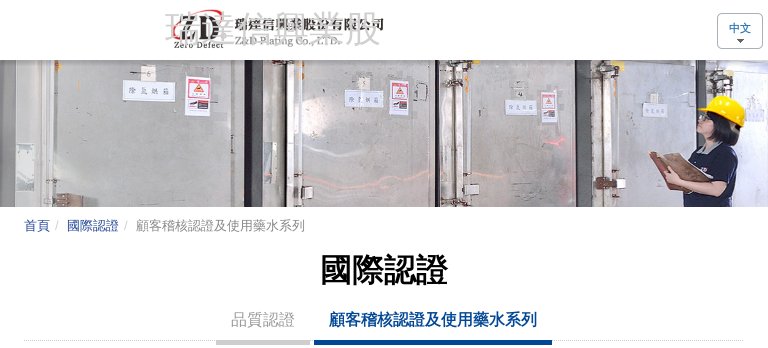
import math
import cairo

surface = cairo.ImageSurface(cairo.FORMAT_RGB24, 768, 348)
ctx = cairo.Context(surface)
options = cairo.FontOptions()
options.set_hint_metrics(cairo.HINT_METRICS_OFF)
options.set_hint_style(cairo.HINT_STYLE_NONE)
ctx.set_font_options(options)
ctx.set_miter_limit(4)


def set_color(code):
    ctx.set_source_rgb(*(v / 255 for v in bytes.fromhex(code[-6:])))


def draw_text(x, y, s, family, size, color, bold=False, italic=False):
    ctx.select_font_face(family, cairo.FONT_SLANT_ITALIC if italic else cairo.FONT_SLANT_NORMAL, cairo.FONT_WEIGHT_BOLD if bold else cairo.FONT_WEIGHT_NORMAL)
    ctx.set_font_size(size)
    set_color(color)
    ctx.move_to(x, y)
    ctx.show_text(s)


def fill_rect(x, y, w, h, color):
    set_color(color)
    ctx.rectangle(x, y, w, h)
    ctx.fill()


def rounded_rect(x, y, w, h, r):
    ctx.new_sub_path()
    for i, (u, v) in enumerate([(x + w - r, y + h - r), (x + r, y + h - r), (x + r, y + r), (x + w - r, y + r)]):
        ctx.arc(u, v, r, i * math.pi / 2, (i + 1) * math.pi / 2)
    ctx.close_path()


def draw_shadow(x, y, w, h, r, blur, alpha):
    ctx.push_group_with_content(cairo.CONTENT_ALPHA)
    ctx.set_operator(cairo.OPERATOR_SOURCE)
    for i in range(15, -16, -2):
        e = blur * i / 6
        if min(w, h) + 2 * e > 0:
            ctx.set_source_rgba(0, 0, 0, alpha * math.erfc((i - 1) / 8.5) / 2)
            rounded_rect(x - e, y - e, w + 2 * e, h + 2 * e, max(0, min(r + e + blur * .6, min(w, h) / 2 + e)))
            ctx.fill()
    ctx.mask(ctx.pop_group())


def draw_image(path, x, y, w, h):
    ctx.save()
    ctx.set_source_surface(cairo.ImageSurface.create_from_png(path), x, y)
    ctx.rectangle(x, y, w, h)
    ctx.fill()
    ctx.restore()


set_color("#ffffff")
ctx.paint()
draw_image("assets/img3.png", 767, 60, 1, 147)
draw_image("assets/img4.png", 0, 60, 768, 147)
ctx.save()
ctx.rectangle(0, 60, 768, 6)
ctx.clip()
set_color("#000000")
draw_shadow(0, 4, 768, 60, 0, 2, 0.15)
ctx.restore()
draw_image("assets/img1.png", 171, 9, 213, 40)
draw_text(165, 41, "瑞達信興業股", "WenQuanYi Zen Hei Medium", 36, "#d0d0d0")
draw_image("assets/img2.png", 737, 39, 7, 4)
rounded_rect(717.5, 13.5, 45, 35, 4.5)
set_color("#a9b0b8")
ctx.set_line_width(1)
ctx.stroke()
draw_text(729, 32, "中文", "WenQuanYi Zen Hei", 11, "#337ab7", bold=True)
draw_text(24, 230, "首頁", "WenQuanYi Zen Hei Medium", 13, "#224594")
draw_text(55, 230, "/", "Liberation Sans", 13, "#d0d0d0")
draw_text(67, 230, "國際認證", "WenQuanYi Zen Hei Medium", 13, "#224594")
draw_text(124, 230, "/", "Liberation Sans", 13, "#d0d0d0")
draw_text(136, 230, "顧客稽核認證及使用藥水系列", "WenQuanYi Zen Hei Medium", 13, "#888888")
draw_text(320, 281, "國際認證", "WenQuanYi Zen Hei", 32, "#000000", bold=True)
draw_image("assets/img5.png", 24, 340, 719, 1)
fill_rect(216, 340, 94, 5, "#cecece")
draw_text(231, 325, "品質認證", "WenQuanYi Zen Hei Medium", 16, "#999999")
fill_rect(314, 340, 238, 5, "#024795")
draw_text(329, 325, "顧客稽核認證及使用藥水系列", "WenQuanYi Zen Hei", 16, "#024795", bold=True)
surface.write_to_png("output.png")
